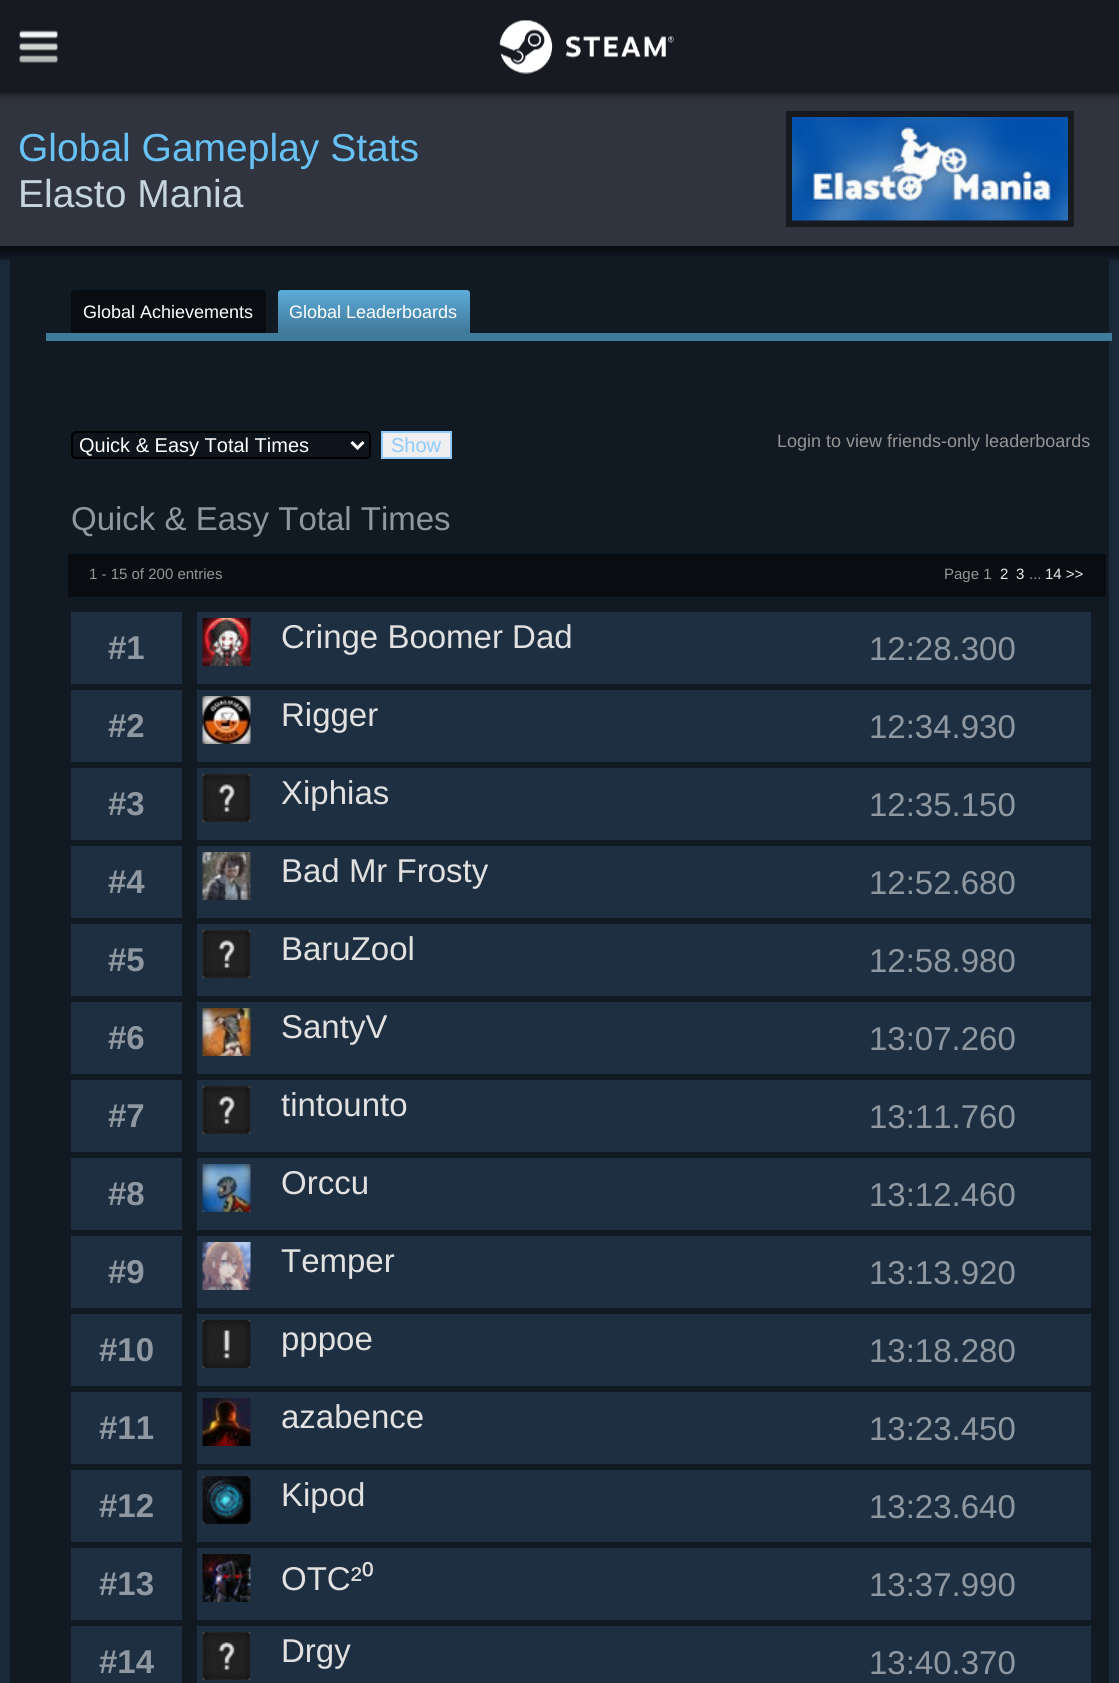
import math
import cairo

surface = cairo.ImageSurface(cairo.FORMAT_RGB24, 1119, 1683)
ctx = cairo.Context(surface)
options = cairo.FontOptions()
options.set_hint_metrics(cairo.HINT_METRICS_OFF)
options.set_hint_style(cairo.HINT_STYLE_NONE)
ctx.set_font_options(options)
ctx.set_miter_limit(4)


def set_color(code):
    ctx.set_source_rgb(*(v / 255 for v in bytes.fromhex(code[-6:])))


def draw_text(x, y, s, family, size, color, bold=False, italic=False):
    ctx.select_font_face(family, cairo.FONT_SLANT_ITALIC if italic else cairo.FONT_SLANT_NORMAL, cairo.FONT_WEIGHT_BOLD if bold else cairo.FONT_WEIGHT_NORMAL)
    ctx.set_font_size(size)
    set_color(color)
    ctx.move_to(x, y)
    ctx.show_text(s)


def fill_rect(x, y, w, h, color):
    set_color(color)
    ctx.rectangle(x, y, w, h)
    ctx.fill()


def rounded_rect(x, y, w, h, r):
    ctx.new_sub_path()
    for i, (u, v) in enumerate([(x + w - r, y + h - r), (x + r, y + h - r), (x + r, y + r), (x + w - r, y + r)]):
        ctx.arc(u, v, r, i * math.pi / 2, (i + 1) * math.pi / 2)
    ctx.close_path()


def draw_shadow(x, y, w, h, r, blur, alpha):
    ctx.push_group_with_content(cairo.CONTENT_ALPHA)
    ctx.set_operator(cairo.OPERATOR_SOURCE)
    for i in range(15, -16, -2):
        e = blur * i / 6
        if min(w, h) + 2 * e > 0:
            ctx.set_source_rgba(0, 0, 0, alpha * math.erfc((i - 1) / 8.5) / 2)
            rounded_rect(x - e, y - e, w + 2 * e, h + 2 * e, max(0, min(r + e + blur * .6, min(w, h) / 2 + e)))
            ctx.fill()
    ctx.mask(ctx.pop_group())


def draw_image(path, x, y, w, h):
    ctx.save()
    ctx.set_source_surface(cairo.ImageSurface.create_from_png(path), x, y)
    ctx.rectangle(x, y, w, h)
    ctx.fill()
    ctx.restore()


set_color("#1b2838")
ctx.paint()
draw_image("assets/img3.png", 0, 93, 1119, 167)
set_color("#000000")
draw_shadow(0, 0, 1119, 93, 0, 5, 0.75)
fill_rect(0, 0, 1119, 93, "#171a21")
draw_image("assets/img1.png", 19, 30, 39, 33)
draw_image("assets/img2.png", 499, 20, 175, 54)
draw_text(18, 161, "Global Gameplay Stats", "Liberation Sans", 39, "#67c1f5")
draw_text(18, 207, "Elasto Mania", "Liberation Sans", 39, "#c6d4df")
fill_rect(786, 111, 288, 116, "#181a1f")
draw_image("assets/img4.png", 792, 117, 276, 104)
fill_rect(10, 259, 1099, 1424, "#111923")
set_color("#090d12")
ctx.new_path()
ctx.move_to(74, 290)
ctx.line_to(263, 290)
ctx.curve_to(264.5, 290, 266, 291.5, 266, 293)
ctx.line_to(266, 333)
ctx.line_to(71, 333)
ctx.line_to(71, 293)
ctx.curve_to(71, 291.5, 72.5, 290, 74, 290)
ctx.close_path()
ctx.fill()
draw_text(83, 318, "Global Achievements", "Liberation Sans", 18, "#ffffff")
gradient = cairo.LinearGradient(374, 290, 374, 333)
gradient.add_color_stop_rgba(0.05, 0.353, 0.663, 0.839, 1)
gradient.add_color_stop_rgba(0.95, 0.255, 0.482, 0.612, 1)
ctx.set_source(gradient)
ctx.new_path()
ctx.move_to(281, 290)
ctx.line_to(467, 290)
ctx.curve_to(468.5, 290, 470, 291.5, 470, 293)
ctx.line_to(470, 333)
ctx.line_to(278, 333)
ctx.line_to(278, 293)
ctx.curve_to(278, 291.5, 279.5, 290, 281, 290)
ctx.close_path()
ctx.fill()
draw_text(289, 318, "Global Leaderboards", "Liberation Sans", 18, "#ffffff")
fill_rect(46, 333, 1066, 8, "#417b9c")
set_color("#0e141c")
rounded_rect(72, 432, 298, 26, 4)
ctx.fill_preserve()
set_color("#000000")
ctx.stroke()
ctx.new_path()
ctx.move_to(351.5, 442)
ctx.line_to(357.5, 448)
ctx.line_to(363.5, 442)
set_color("#ffffff")
ctx.set_line_width(3)
ctx.stroke()
draw_text(79, 452, "Quick & Easy Total Times", "Liberation Sans", 20, "#ffffff")
set_color("#efefef")
ctx.rectangle(382, 432, 69, 26)
ctx.fill_preserve()
set_color("#8ecafc")
ctx.set_line_width(2)
ctx.stroke()
draw_text(391, 452, "Show", "Liberation Sans", 20, "#8ecafc")
draw_text(777, 447, "Login to view friends-only leaderboards", "Liberation Sans", 18, "#959595")
draw_text(71, 530, "Quick & Easy Total Times", "Liberation Sans", 33, "#8f98a0")
fill_rect(68, 554, 1038, 43, "#090d12")
draw_text(89, 579, "1 - 15 of 200 entries", "Liberation Sans", 15, "#959595")
draw_text(944, 579, "Page 1", "Liberation Sans", 15, "#959595")
draw_text(1000, 579, "2", "Liberation Sans", 15, "#ebebeb")
draw_text(1016, 579, "3", "Liberation Sans", 15, "#ebebeb")
draw_text(1029, 579, "...", "Liberation Sans", 15, "#959595")
draw_text(1045, 579, "14 >>", "Liberation Sans", 15, "#ebebeb")
fill_rect(71, 612, 111, 72, "#1e2f41")
draw_text(108, 659, "#1", "Liberation Sans", 33, "#8f98a0", bold=True)
fill_rect(197, 612, 894, 72, "#1e2f41")
draw_image("assets/img5.png", 202, 618, 49, 48)
draw_text(281, 648, "Cringe Boomer Dad", "Liberation Sans", 33, "#e1e1e1")
draw_text(869, 660, "12:28.300", "Liberation Sans", 33, "#8f98a0")
fill_rect(71, 690, 111, 72, "#1e2f41")
draw_text(108, 737, "#2", "Liberation Sans", 33, "#8f98a0", bold=True)
fill_rect(197, 690, 894, 72, "#1e2f41")
draw_image("assets/img6.png", 202, 696, 49, 48)
draw_text(281, 726, "Rigger", "Liberation Sans", 33, "#e1e1e1")
draw_text(869, 738, "12:34.930", "Liberation Sans", 33, "#8f98a0")
fill_rect(71, 768, 111, 72, "#1e2f41")
draw_text(108, 815, "#3", "Liberation Sans", 33, "#8f98a0", bold=True)
fill_rect(197, 768, 894, 72, "#1e2f41")
draw_image("assets/img7.png", 202, 774, 49, 48)
draw_text(281, 804, "Xiphias", "Liberation Sans", 33, "#e1e1e1")
draw_text(869, 816, "12:35.150", "Liberation Sans", 33, "#8f98a0")
fill_rect(71, 846, 111, 72, "#1e2f41")
draw_text(108, 893, "#4", "Liberation Sans", 33, "#8f98a0", bold=True)
fill_rect(197, 846, 894, 72, "#1e2f41")
draw_image("assets/img8.png", 202, 852, 49, 48)
draw_text(281, 882, "Bad Mr Frosty", "Liberation Sans", 33, "#e1e1e1")
draw_text(869, 894, "12:52.680", "Liberation Sans", 33, "#8f98a0")
fill_rect(71, 924, 111, 72, "#1e2f41")
draw_text(108, 971, "#5", "Liberation Sans", 33, "#8f98a0", bold=True)
fill_rect(197, 924, 894, 72, "#1e2f41")
draw_image("assets/img7.png", 202, 930, 49, 48)
draw_text(281, 960, "BaruZool", "Liberation Sans", 33, "#e1e1e1")
draw_text(869, 972, "12:58.980", "Liberation Sans", 33, "#8f98a0")
fill_rect(71, 1002, 111, 72, "#1e2f41")
draw_text(108, 1049, "#6", "Liberation Sans", 33, "#8f98a0", bold=True)
fill_rect(197, 1002, 894, 72, "#1e2f41")
draw_image("assets/img9.png", 202, 1008, 49, 48)
draw_text(281, 1038, "SantyV", "Liberation Sans", 33, "#e1e1e1")
draw_text(869, 1050, "13:07.260", "Liberation Sans", 33, "#8f98a0")
fill_rect(71, 1080, 111, 72, "#1e2f41")
draw_text(108, 1127, "#7", "Liberation Sans", 33, "#8f98a0", bold=True)
fill_rect(197, 1080, 894, 72, "#1e2f41")
draw_image("assets/img7.png", 202, 1086, 49, 48)
draw_text(281, 1116, "tintounto", "Liberation Sans", 33, "#e1e1e1")
draw_text(869, 1128, "13:11.760", "Liberation Sans", 33, "#8f98a0")
fill_rect(71, 1158, 111, 72, "#1e2f41")
draw_text(108, 1205, "#8", "Liberation Sans", 33, "#8f98a0", bold=True)
fill_rect(197, 1158, 894, 72, "#1e2f41")
draw_image("assets/img10.png", 202, 1164, 49, 48)
draw_text(281, 1194, "Orccu", "Liberation Sans", 33, "#e1e1e1")
draw_text(869, 1206, "13:12.460", "Liberation Sans", 33, "#8f98a0")
fill_rect(71, 1236, 111, 72, "#1e2f41")
draw_text(108, 1283, "#9", "Liberation Sans", 33, "#8f98a0", bold=True)
fill_rect(197, 1236, 894, 72, "#1e2f41")
draw_image("assets/img11.png", 202, 1242, 49, 48)
draw_text(281, 1272, "Temper", "Liberation Sans", 33, "#e1e1e1")
draw_text(869, 1284, "13:13.920", "Liberation Sans", 33, "#8f98a0")
fill_rect(71, 1314, 111, 72, "#1e2f41")
draw_text(99, 1361, "#10", "Liberation Sans", 33, "#8f98a0", bold=True)
fill_rect(197, 1314, 894, 72, "#1e2f41")
draw_image("assets/img12.png", 202, 1320, 49, 48)
draw_text(281, 1350, "pppoe", "Liberation Sans", 33, "#e1e1e1")
draw_text(869, 1362, "13:18.280", "Liberation Sans", 33, "#8f98a0")
fill_rect(71, 1392, 111, 72, "#1e2f41")
draw_text(99, 1439, "#11", "Liberation Sans", 33, "#8f98a0", bold=True)
fill_rect(197, 1392, 894, 72, "#1e2f41")
draw_image("assets/img13.png", 202, 1398, 49, 48)
draw_text(281, 1428, "azabence", "Liberation Sans", 33, "#e1e1e1")
draw_text(869, 1440, "13:23.450", "Liberation Sans", 33, "#8f98a0")
fill_rect(71, 1470, 111, 72, "#1e2f41")
draw_text(99, 1517, "#12", "Liberation Sans", 33, "#8f98a0", bold=True)
fill_rect(197, 1470, 894, 72, "#1e2f41")
draw_image("assets/img14.png", 202, 1476, 49, 48)
draw_text(281, 1506, "Kipod", "Liberation Sans", 33, "#e1e1e1")
draw_text(869, 1518, "13:23.640", "Liberation Sans", 33, "#8f98a0")
fill_rect(71, 1548, 111, 72, "#1e2f41")
draw_text(99, 1595, "#13", "Liberation Sans", 33, "#8f98a0", bold=True)
fill_rect(197, 1548, 894, 72, "#1e2f41")
draw_image("assets/img15.png", 202, 1554, 49, 48)
draw_text(281, 1590, "OTC²", "Liberation Sans", 33, "#e1e1e1")
draw_text(362, 1590, "⁰", "Noto Sans", 33, "#e1e1e1")
draw_text(869, 1596, "13:37.990", "Liberation Sans", 33, "#8f98a0")
fill_rect(71, 1626, 111, 57, "#1e2f41")
draw_text(99, 1673, "#14", "Liberation Sans", 33, "#8f98a0", bold=True)
fill_rect(197, 1626, 894, 57, "#1e2f41")
draw_image("assets/img7.png", 202, 1632, 49, 48)
draw_text(281, 1662, "Drgy", "Liberation Sans", 33, "#e1e1e1")
draw_text(869, 1674, "13:40.370", "Liberation Sans", 33, "#8f98a0")
surface.write_to_png("output.png")
